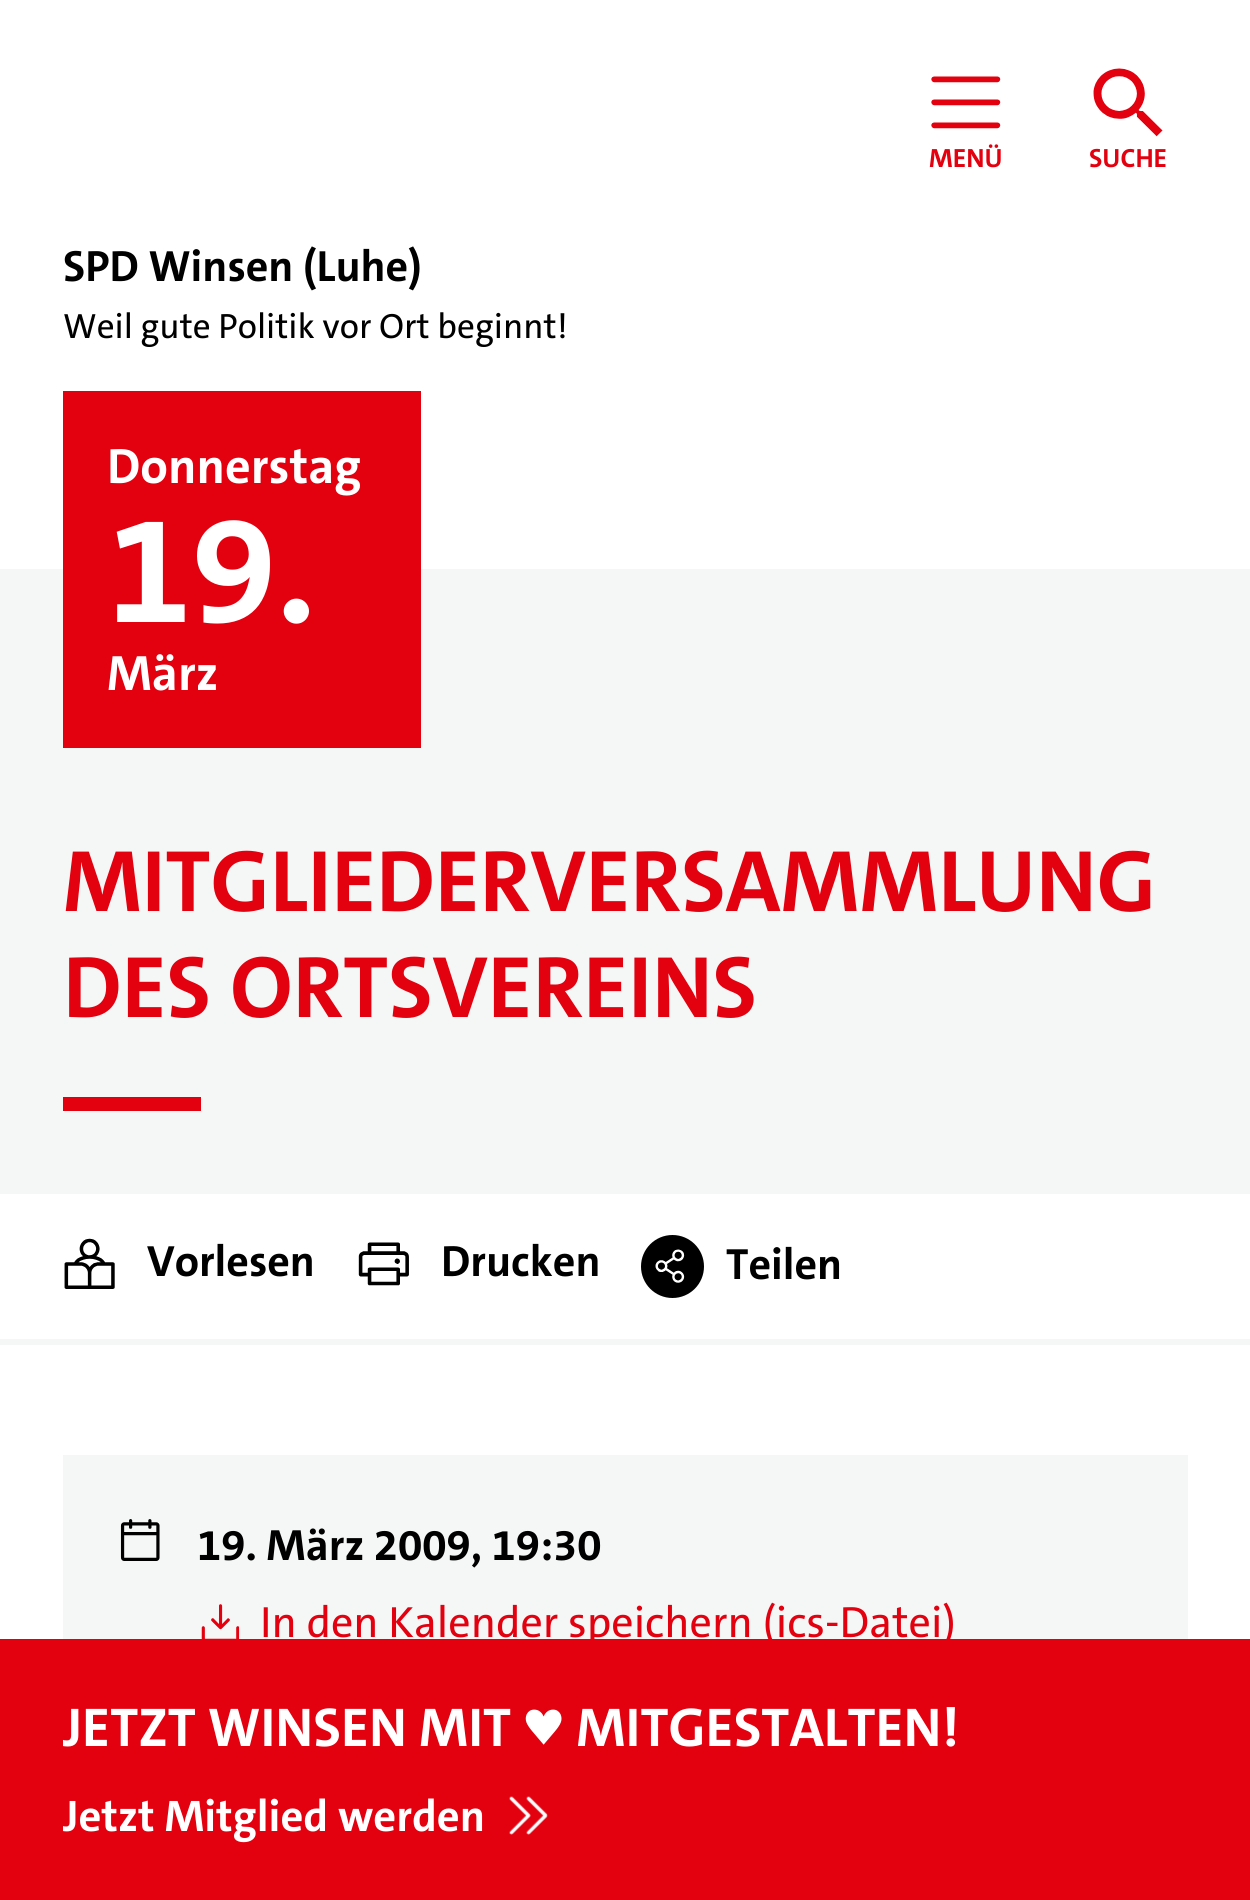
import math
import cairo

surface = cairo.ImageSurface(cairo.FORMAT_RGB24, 1250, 1900)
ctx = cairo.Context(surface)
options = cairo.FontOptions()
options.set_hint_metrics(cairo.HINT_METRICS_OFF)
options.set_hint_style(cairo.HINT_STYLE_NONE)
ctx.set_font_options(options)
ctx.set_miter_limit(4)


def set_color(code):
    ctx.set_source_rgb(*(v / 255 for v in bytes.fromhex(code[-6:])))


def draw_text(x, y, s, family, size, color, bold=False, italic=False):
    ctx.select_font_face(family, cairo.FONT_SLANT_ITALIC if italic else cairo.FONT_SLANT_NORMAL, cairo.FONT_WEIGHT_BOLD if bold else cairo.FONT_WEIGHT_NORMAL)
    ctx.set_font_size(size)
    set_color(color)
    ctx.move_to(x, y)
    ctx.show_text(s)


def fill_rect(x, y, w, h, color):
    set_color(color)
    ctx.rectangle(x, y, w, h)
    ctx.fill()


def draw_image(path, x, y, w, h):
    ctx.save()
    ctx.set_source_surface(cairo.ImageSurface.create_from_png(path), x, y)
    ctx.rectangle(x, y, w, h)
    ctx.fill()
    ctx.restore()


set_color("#ffffff")
ctx.paint()
draw_image("assets/img1.png", 931, 76, 70, 53)
draw_text(929, 167, "MENÜ", "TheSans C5", 26.5, "#e3000f", bold=True)
draw_image("assets/img2.png", 1093, 68, 70, 69)
draw_text(1089, 167, "SUCHE", "TheSans C5", 26.5, "#e3000f", bold=True)
draw_text(63, 281, "SPD Winsen (Luhe)", "TheSans C5", 44, "#000000", bold=True)
draw_text(63, 338, "Weil gute Politik vor Ort beginnt!", "TheSans C5 Medium", 35.25, "#000000")
fill_rect(0, 569, 1250, 625, "#f5f6f6")
fill_rect(63, 391, 358, 357, "#e3000f")
draw_text(107, 483, "Donnerstag", "TheSans C5", 50, "#ffffff", bold=True)
draw_text(107, 622, "19.", "TheSans C5", 154, "#ffffff", bold=True)
draw_text(107, 690, "März", "TheSans C5", 50, "#ffffff", bold=True)
draw_text(63, 911, "MITGLIEDERVERSAMMLUNG", "TheSans C5", 88, "#e3000f", bold=True)
draw_text(63, 1017, "DES ORTSVEREINS", "TheSans C5", 88, "#e3000f", bold=True)
fill_rect(63, 1097, 138, 14, "#e3000f")
fill_rect(0, 1339, 1250, 6, "#f5f6f6")
draw_image("assets/img3.png", 64, 1238, 51, 51)
draw_text(147, 1276, "Vorlesen", "TheSans C5", 44, "#000000", bold=True)
draw_image("assets/img4.png", 358, 1242, 51, 44)
draw_text(441, 1276, "Drucken", "TheSans C5", 44, "#000000", bold=True)
ctx.new_path()
ctx.arc(672.5, 1266.5, 31.5, 0, 2 * math.pi)
ctx.fill()
draw_image("assets/img5.png", 655, 1249, 30, 34)
draw_text(726, 1279, "Teilen", "TheSans C5", 44, "#000000", bold=True)
fill_rect(63, 1455, 1125, 184, "#f5f6f6")
draw_image("assets/img6.png", 120, 1519, 40, 42)
draw_text(197, 1560, "19. März 2009, 19:30", "TheSans C5", 44, "#000000", bold=True)
draw_image("assets/img7.png", 201, 1604, 39, 35)
draw_text(260, 1637, "In den Kalender speichern (ics-Datei)", "TheSans C5 Medium", 44, "#e3000f")
fill_rect(0, 1639, 1250, 261, "#e3000f")
draw_text(63, 1746, "JETZT WINSEN MIT ♥ MITGESTALTEN!", "TheSans C5", 55, "#ffffff", bold=True)
draw_text(63, 1831, "Jetzt Mitglied werden", "TheSans C5", 44.5, "#ffffff", bold=True)
draw_image("assets/img8.png", 509, 1796, 39, 39)
surface.write_to_png("output.png")
